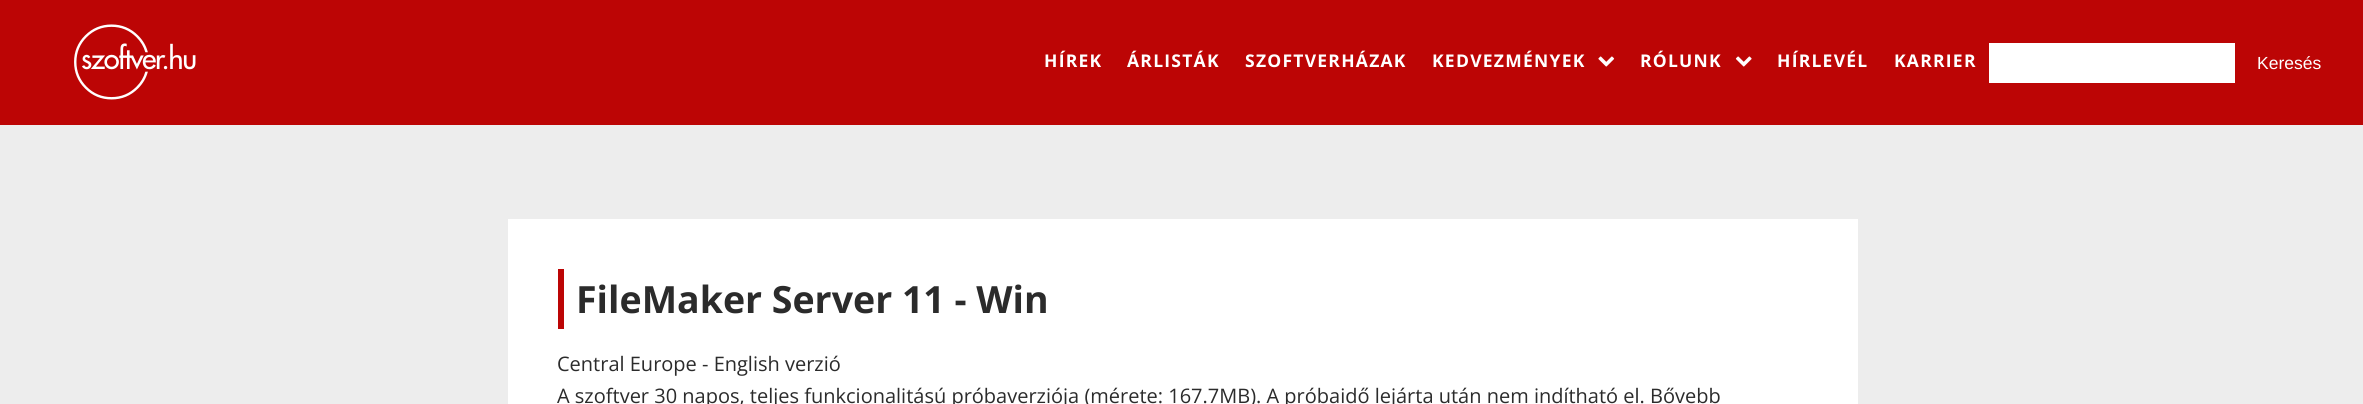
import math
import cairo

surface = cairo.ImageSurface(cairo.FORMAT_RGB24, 2363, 404)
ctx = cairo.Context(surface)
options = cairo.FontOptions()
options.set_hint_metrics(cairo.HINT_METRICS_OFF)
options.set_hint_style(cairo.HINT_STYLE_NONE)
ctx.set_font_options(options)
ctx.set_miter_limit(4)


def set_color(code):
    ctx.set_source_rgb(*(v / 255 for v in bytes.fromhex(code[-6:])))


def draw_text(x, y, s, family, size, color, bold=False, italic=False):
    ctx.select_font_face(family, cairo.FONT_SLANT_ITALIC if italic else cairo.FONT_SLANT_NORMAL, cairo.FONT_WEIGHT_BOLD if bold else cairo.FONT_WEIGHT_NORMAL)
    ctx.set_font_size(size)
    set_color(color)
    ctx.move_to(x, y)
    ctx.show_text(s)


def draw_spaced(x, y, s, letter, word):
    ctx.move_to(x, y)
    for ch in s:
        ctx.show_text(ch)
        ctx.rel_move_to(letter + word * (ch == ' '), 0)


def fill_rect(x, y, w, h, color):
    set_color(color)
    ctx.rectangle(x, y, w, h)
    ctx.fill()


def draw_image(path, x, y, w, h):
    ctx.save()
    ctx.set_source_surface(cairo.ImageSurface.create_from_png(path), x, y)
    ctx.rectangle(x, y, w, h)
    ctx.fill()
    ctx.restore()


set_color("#ededed")
ctx.paint()
fill_rect(0, 0, 2363, 125, "#bc0505")
draw_image("assets/img1.png", 74, 24, 122, 76)
ctx.select_font_face("Open Sans", cairo.FONT_SLANT_NORMAL, cairo.FONT_WEIGHT_BOLD)
ctx.set_font_size(17.5)
set_color("#ffffff")
draw_spaced(1044, 67, "HÍREK", 1.25, 0)
draw_spaced(1127, 67, "ÁRLISTÁK", 1.25, 0)
draw_spaced(1245, 67, "SZOFTVERHÁZAK", 1.25, 0)
draw_spaced(1432, 67, "KEDVEZMÉNYEK", 1.25, 0)
draw_image("assets/img2.png", 1598, 56, 17, 11)
draw_spaced(1640, 67, "RÓLUNK", 1.25, 0)
draw_image("assets/img3.png", 1735, 56, 17, 11)
draw_spaced(1777, 67, "HÍRLEVÉL", 1.25, 0)
draw_spaced(1894, 67, "KARRIER", 1.25, 0)
fill_rect(1989, 43, 246, 40, "#ffffff")
draw_text(2257, 69, "Keresés", "Liberation Sans", 17.5, "#ffffff")
fill_rect(508, 219, 1350, 185, "#ffffff")
fill_rect(558, 269, 6, 60, "#bc0505")
draw_text(576, 313, "FileMaker Server 11 - Win", "Open Sans", 37.5, "#2b2b2b", bold=True)
draw_text(557, 371, "Central Europe - English verzió", "Open Sans", 20, "#2b2b2b")
draw_text(557, 403, "A szoftver 30 napos, teljes funkcionalitású próbaverziója (mérete: 167.7MB). A próbaidő lejárta után nem indítható el. Bővebb", "Open Sans", 20, "#2b2b2b")
surface.write_to_png("output.png")
